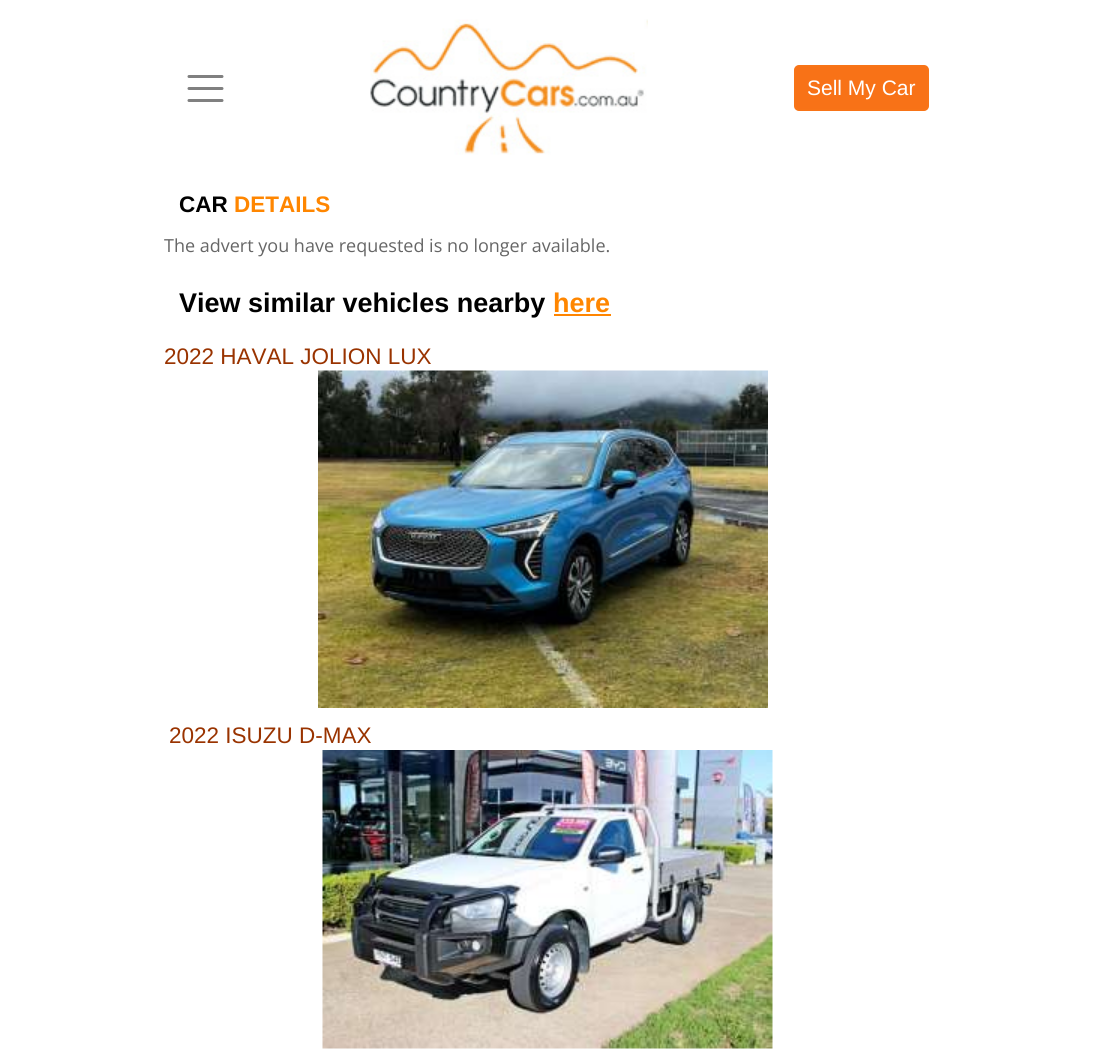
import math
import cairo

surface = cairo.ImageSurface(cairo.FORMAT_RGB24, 1093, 1058)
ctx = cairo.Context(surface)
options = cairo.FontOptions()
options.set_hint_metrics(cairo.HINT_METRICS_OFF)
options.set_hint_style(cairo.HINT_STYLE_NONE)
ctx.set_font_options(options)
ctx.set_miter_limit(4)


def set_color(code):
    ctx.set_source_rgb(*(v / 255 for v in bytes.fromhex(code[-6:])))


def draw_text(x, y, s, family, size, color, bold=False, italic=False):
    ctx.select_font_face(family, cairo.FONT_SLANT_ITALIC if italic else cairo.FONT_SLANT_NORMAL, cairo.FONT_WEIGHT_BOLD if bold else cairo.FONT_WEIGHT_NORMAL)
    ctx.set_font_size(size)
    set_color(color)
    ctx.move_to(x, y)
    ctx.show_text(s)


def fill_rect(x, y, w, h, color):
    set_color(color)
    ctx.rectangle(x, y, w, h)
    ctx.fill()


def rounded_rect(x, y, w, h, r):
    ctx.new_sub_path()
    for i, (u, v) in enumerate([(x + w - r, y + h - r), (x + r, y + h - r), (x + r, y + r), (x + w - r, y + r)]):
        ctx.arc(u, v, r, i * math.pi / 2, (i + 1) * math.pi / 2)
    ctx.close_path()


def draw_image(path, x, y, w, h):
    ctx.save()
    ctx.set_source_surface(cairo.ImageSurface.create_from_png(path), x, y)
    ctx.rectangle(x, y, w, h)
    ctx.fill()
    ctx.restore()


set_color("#ffffff")
ctx.paint()
ctx.new_path()
ctx.move_to(189, 76.5)
ctx.line_to(222, 76.5)
ctx.move_to(189, 88.5)
ctx.line_to(222, 88.5)
ctx.move_to(189, 100.5)
ctx.line_to(222, 100.5)
set_color("#808080")
ctx.set_line_width(3)
ctx.set_line_cap(cairo.LINE_CAP_ROUND)
ctx.stroke()
draw_image("assets/img1.png", 370, 19, 278, 136)
set_color("#f87217")
rounded_rect(795, 66, 133, 44, 4)
ctx.fill_preserve()
set_color("#f87417")
ctx.set_line_width(2)
ctx.set_line_cap(cairo.LINE_CAP_BUTT)
ctx.stroke()
draw_text(807, 95, "Sell My Car", "Liberation Sans", 21, "#ffffff")
draw_text(179, 212, "CAR", "Liberation Sans", 22.5, "#000000", bold=True)
draw_text(234, 212, "DETAILS", "Liberation Sans", 22.5, "#ff8600", bold=True)
draw_text(164, 252, "The advert you have requested is no longer available.", "Open Sans", 18, "#666666")
draw_text(179, 312, "View similar vehicles nearby", "Liberation Sans", 27, "#000000", bold=True)
draw_text(553, 312, "here", "Liberation Sans", 27, "#ff8600", bold=True)
fill_rect(554, 314, 57, 2, "#ff8500")
draw_text(164, 364, "2022 HAVAL JOLION LUX", "Liberation Sans", 22.5, "#993300")
draw_image("assets/img2.png", 318, 370, 450, 338)
draw_text(169, 743, "2022 ISUZU D-MAX", "Liberation Sans", 22.5, "#993300")
draw_image("assets/img3.png", 322, 750, 451, 299)
surface.write_to_png("output.png")
